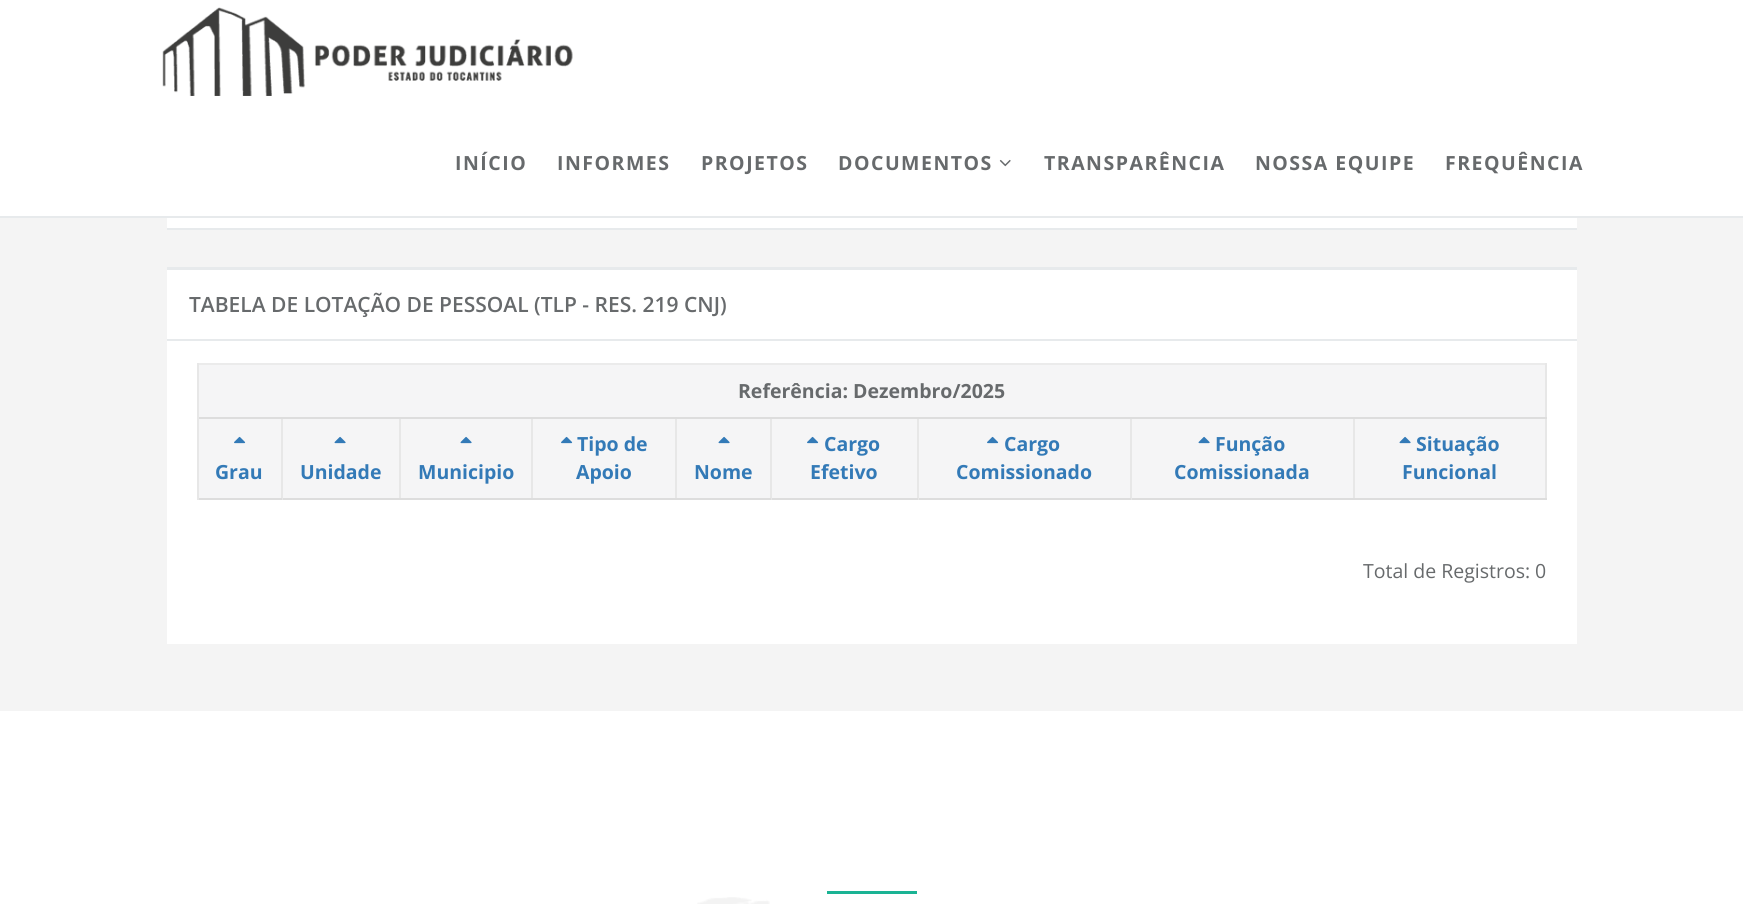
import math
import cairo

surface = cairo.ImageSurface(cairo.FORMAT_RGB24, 1743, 904)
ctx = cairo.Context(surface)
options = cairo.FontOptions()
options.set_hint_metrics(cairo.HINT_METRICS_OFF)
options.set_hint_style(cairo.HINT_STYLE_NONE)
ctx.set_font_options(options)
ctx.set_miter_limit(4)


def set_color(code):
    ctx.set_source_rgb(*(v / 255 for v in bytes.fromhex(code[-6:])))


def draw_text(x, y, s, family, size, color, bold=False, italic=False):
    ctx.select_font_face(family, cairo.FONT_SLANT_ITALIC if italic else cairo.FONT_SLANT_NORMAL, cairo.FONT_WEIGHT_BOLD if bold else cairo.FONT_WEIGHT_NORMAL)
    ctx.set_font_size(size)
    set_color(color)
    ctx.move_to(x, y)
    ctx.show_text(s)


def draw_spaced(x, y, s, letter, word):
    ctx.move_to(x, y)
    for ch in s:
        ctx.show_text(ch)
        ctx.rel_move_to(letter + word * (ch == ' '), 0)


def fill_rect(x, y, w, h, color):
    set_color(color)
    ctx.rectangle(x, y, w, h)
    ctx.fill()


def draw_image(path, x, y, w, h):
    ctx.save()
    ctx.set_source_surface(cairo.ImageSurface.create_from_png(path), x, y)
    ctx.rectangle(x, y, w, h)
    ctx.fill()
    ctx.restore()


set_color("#ffffff")
ctx.paint()
fill_rect(0, 216, 1743, 2, "#e7eaec")
draw_image("assets/img1.png", 162, 7, 411, 89)
ctx.select_font_face("Open Sans", cairo.FONT_SLANT_NORMAL, cairo.FONT_WEIGHT_BOLD)
ctx.set_font_size(19.5)
set_color("#676a6c")
draw_spaced(455, 170, "INÍCIO", 1.5, 0)
draw_spaced(557, 170, "INFORMES", 1.5, 0)
draw_spaced(701, 170, "PROJETOS", 1.5, 0)
draw_spaced(838, 170, "DOCUMENTOS", 1.5, 0)
draw_image("assets/img2.png", 999, 159, 12, 8)
draw_spaced(1044, 170, "TRANSPARÊNCIA", 1.5, 0)
draw_spaced(1255, 170, "NOSSA EQUIPE", 1.5, 0)
draw_spaced(1445, 170, "FREQUÊNCIA", 1.5, 0)
fill_rect(0, 218, 1743, 493, "#f4f4f4")
fill_rect(167, 228, 1410, 2, "#e7eaec")
fill_rect(167, 218, 1410, 10, "#ffffff")
fill_rect(167, 270, 1410, 69, "#ffffff")
fill_rect(167, 267, 1410, 3, "#e7eaec")
draw_text(189, 312, "TABELA DE LOTAÇÃO DE PESSOAL (TLP - RES. 219 CNJ)", "Open Sans SemiBold", 21, "#676a6c")
fill_rect(167, 341, 1410, 303, "#ffffff")
fill_rect(167, 339, 1410, 2, "#e7eaec")
fill_rect(197, 363, 1350, 2, "#ebebeb")
fill_rect(199, 365, 1346, 52, "#f5f5f6")
fill_rect(1545, 363, 2, 137, "#e7e7e7")
fill_rect(1353, 498, 194, 2, "#dddddd")
fill_rect(1353, 417, 2, 83, "#e7e7e7")
fill_rect(1130, 498, 225, 2, "#dddddd")
fill_rect(1130, 417, 2, 83, "#e7e7e7")
fill_rect(917, 498, 214, 2, "#dddddd")
fill_rect(917, 417, 2, 83, "#e7e7e7")
fill_rect(770, 498, 148, 2, "#dddddd")
fill_rect(770, 417, 2, 83, "#e7e7e7")
fill_rect(675, 498, 96, 2, "#dddddd")
fill_rect(675, 417, 2, 83, "#e7e7e7")
fill_rect(531, 498, 146, 2, "#dddddd")
fill_rect(531, 417, 2, 83, "#e7e7e7")
fill_rect(399, 498, 134, 2, "#dddddd")
fill_rect(399, 417, 2, 83, "#e7e7e7")
fill_rect(281, 498, 120, 2, "#dddddd")
fill_rect(281, 417, 2, 83, "#e7e7e7")
fill_rect(197, 498, 85, 2, "#dddddd")
fill_rect(197, 417, 2, 83, "#e7e7e7")
fill_rect(197, 417, 1350, 2, "#dddddd")
fill_rect(197, 363, 2, 56, "#e7e7e7")
draw_text(738, 398, "Referência: Dezembro/2025", "Open Sans", 19.5, "#676a6c", bold=True)
fill_rect(199, 419, 82, 79, "#f5f5f6")
draw_image("assets/img3.png", 234, 436, 12, 8)
draw_text(215, 479, "Grau", "Open Sans", 19.5, "#337ab7", bold=True)
fill_rect(283, 419, 116, 79, "#f5f5f6")
draw_image("assets/img4.png", 334, 436, 12, 8)
draw_text(300, 479, "Unidade", "Open Sans", 19.5, "#337ab7", bold=True)
fill_rect(401, 419, 130, 79, "#f5f5f6")
draw_image("assets/img4.png", 460, 436, 12, 8)
draw_text(418, 479, "Municipio", "Open Sans", 19.5, "#337ab7", bold=True)
fill_rect(533, 419, 142, 79, "#f5f5f6")
draw_image("assets/img3.png", 561, 436, 12, 8)
draw_text(577, 451, "Tipo de", "Open Sans", 19.5, "#337ab7", bold=True)
draw_text(576, 479, "Apoio", "Open Sans", 19.5, "#337ab7", bold=True)
fill_rect(677, 419, 93, 79, "#f5f5f6")
draw_image("assets/img4.png", 718, 436, 12, 8)
draw_text(694, 479, "Nome", "Open Sans", 19.5, "#337ab7", bold=True)
fill_rect(772, 419, 145, 79, "#f5f5f6")
draw_image("assets/img3.png", 807, 436, 12, 8)
draw_text(824, 451, "Cargo", "Open Sans", 19.5, "#337ab7", bold=True)
draw_text(810, 479, "Efetivo", "Open Sans", 19.5, "#337ab7", bold=True)
fill_rect(919, 419, 211, 79, "#f5f5f6")
draw_image("assets/img3.png", 987, 436, 12, 8)
draw_text(1004, 451, "Cargo", "Open Sans", 19.5, "#337ab7", bold=True)
draw_text(956, 479, "Comissionado", "Open Sans", 19.5, "#337ab7", bold=True)
fill_rect(1132, 419, 221, 79, "#f5f5f6")
draw_image("assets/img4.png", 1198, 436, 12, 8)
draw_text(1215, 451, "Função", "Open Sans", 19.5, "#337ab7", bold=True)
draw_text(1174, 479, "Comissionada", "Open Sans", 19.5, "#337ab7", bold=True)
fill_rect(1355, 419, 190, 79, "#f5f5f6")
draw_image("assets/img4.png", 1399, 436, 12, 8)
draw_text(1416, 451, "Situação", "Open Sans", 19.5, "#337ab7", bold=True)
draw_text(1402, 479, "Funcional", "Open Sans", 19.5, "#337ab7", bold=True)
draw_text(1363, 578, "Total de Registros: 0", "Open Sans", 19.5, "#676a6c")
draw_image("assets/img5.png", 697, 897, 73, 7)
fill_rect(827, 891, 90, 3, "#1ab394")
surface.write_to_png("output.png")
